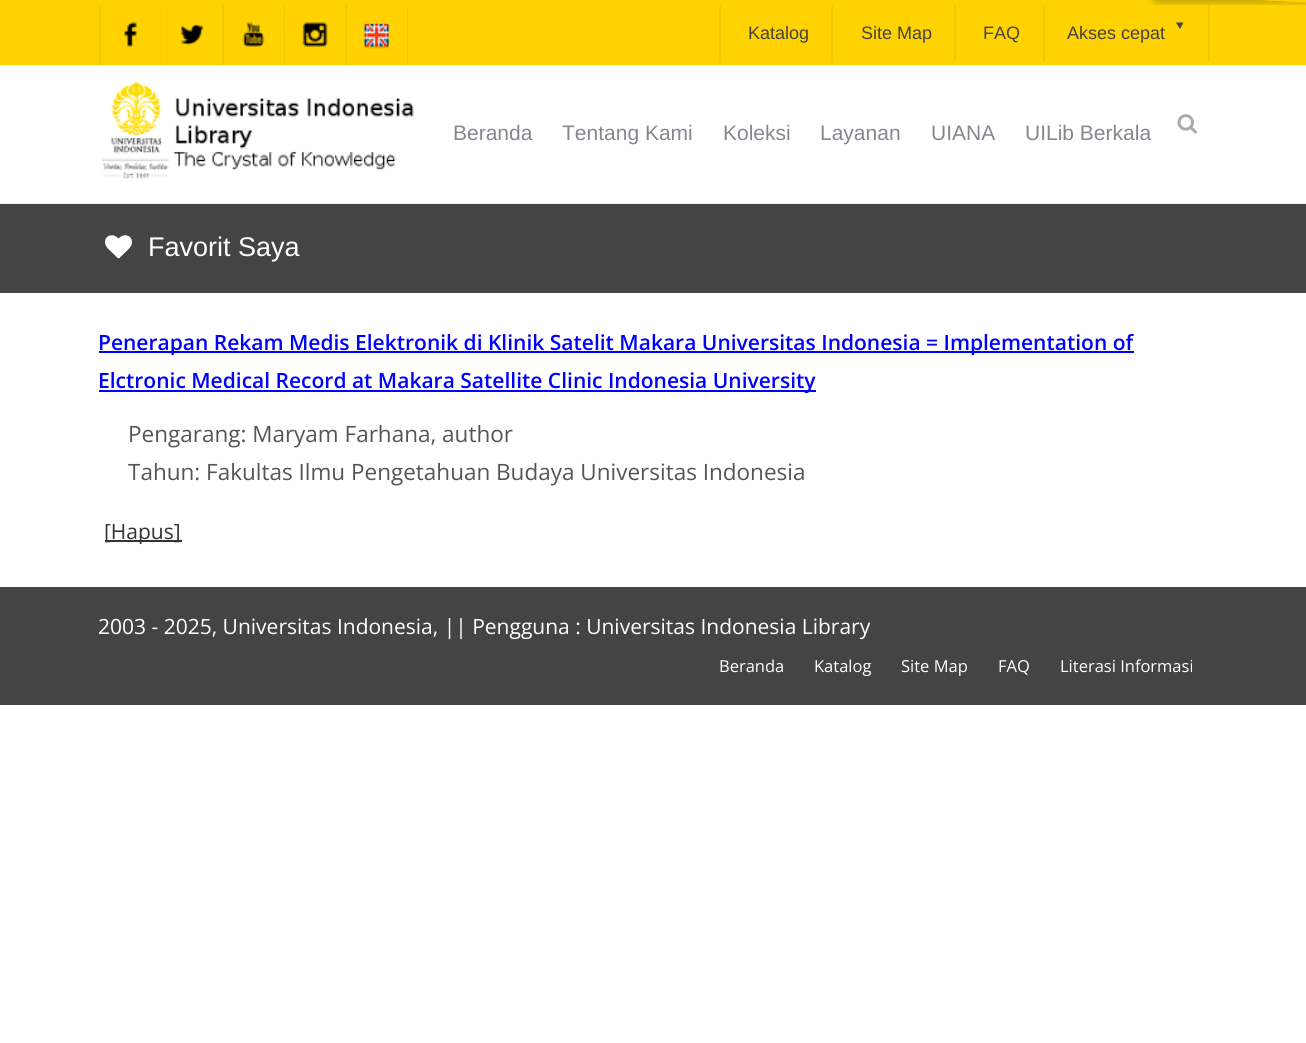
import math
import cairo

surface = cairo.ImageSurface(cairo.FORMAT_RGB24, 1306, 1043)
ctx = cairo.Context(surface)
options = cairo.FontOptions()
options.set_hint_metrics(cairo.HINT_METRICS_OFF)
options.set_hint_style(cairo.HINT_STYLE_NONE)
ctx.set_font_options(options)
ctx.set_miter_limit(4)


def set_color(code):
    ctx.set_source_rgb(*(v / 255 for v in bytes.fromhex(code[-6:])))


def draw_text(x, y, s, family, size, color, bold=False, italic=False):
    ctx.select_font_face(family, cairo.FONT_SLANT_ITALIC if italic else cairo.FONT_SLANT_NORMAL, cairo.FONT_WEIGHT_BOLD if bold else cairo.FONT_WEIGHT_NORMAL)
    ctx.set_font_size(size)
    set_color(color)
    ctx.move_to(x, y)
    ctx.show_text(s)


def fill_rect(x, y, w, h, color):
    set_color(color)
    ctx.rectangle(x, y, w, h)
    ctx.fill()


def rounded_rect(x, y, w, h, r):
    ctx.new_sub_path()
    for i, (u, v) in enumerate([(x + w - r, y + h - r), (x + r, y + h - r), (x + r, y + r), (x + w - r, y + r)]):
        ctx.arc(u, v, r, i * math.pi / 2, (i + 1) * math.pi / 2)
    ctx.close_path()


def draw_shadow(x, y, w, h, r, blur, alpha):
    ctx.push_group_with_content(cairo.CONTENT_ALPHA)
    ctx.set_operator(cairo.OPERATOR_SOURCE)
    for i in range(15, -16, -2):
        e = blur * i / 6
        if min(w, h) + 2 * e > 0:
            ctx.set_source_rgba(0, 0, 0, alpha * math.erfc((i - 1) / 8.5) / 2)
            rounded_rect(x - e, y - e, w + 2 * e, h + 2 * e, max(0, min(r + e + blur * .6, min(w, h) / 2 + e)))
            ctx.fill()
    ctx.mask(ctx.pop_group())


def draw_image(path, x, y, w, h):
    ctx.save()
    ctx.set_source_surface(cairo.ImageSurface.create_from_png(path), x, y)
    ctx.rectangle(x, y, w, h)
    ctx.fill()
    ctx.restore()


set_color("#ffffff")
ctx.paint()
fill_rect(0, 203, 1306, 1, "#f2f2f2")
fill_rect(0, 0, 1306, 65, "#ffd200")
fill_rect(1208, 5, 2, 57, "#f2c800")
ctx.save()
ctx.rectangle(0, 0, 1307, 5)
ctx.clip()
ctx.set_fill_rule(cairo.FILL_RULE_EVEN_ODD)
ctx.new_path()
ctx.move_to(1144, 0)
ctx.line_to(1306, 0)
ctx.line_to(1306, 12)
ctx.line_to(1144, 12)
ctx.close_path()
ctx.move_to(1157, -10)
ctx.line_to(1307, -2)
ctx.line_to(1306.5, 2.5)
ctx.line_to(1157, -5.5)
ctx.close_path()
ctx.clip()
set_color("#b29909")
draw_shadow(1157, -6, 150, 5, 0, 4, 1)
ctx.restore()
set_color("#444444")
ctx.new_path()
ctx.move_to(1183.5, 22.5)
ctx.line_to(1180, 29)
ctx.line_to(1176, 22.5)
ctx.close_path()
ctx.fill()
ctx.save()
ctx.rectangle(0, 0, 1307, 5)
ctx.clip()
ctx.set_fill_rule(cairo.FILL_RULE_EVEN_ODD)
ctx.new_path()
ctx.move_to(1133, 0)
ctx.line_to(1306, 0)
ctx.line_to(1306, 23)
ctx.line_to(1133, 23)
ctx.close_path()
ctx.move_to(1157, -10)
ctx.line_to(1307, -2)
ctx.line_to(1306.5, 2.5)
ctx.line_to(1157, -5.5)
ctx.close_path()
ctx.clip()
set_color("#b29909")
draw_shadow(1157, -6, 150, 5, 0, 7.5, 1)
ctx.restore()
fill_rect(99, 5, 2, 60, "#f2c800")
fill_rect(161, 5, 1, 60, "#f2c800")
draw_image("assets/img1.png", 124, 22, 13, 25)
fill_rect(222, 5, 2, 60, "#f2c800")
draw_image("assets/img2.png", 180, 24, 24, 22)
fill_rect(284, 5, 1, 60, "#f2c800")
draw_image("assets/img3.png", 242, 22, 23, 25)
fill_rect(345, 5, 2, 60, "#f2c800")
draw_image("assets/img4.png", 302, 22, 26, 25)
fill_rect(407, 5, 1, 60, "#f2c800")
draw_image("assets/img5.png", 364, 23, 25, 26)
fill_rect(719, 5, 2, 57, "#f2c800")
draw_text(748, 39, "Katalog", "Liberation Sans", 18, "#444444")
fill_rect(831, 5, 2, 57, "#f2c800")
draw_text(861, 39, "Site Map", "Liberation Sans", 18, "#444444")
fill_rect(954, 5, 2, 57, "#f2c800")
draw_text(983, 39, "FAQ", "Liberation Sans", 18, "#444444")
fill_rect(1043, 5, 2, 57, "#f2c800")
draw_text(1067, 39, "Akses cepat", "Liberation Sans", 18, "#444444")
draw_image("assets/img6.png", 102, 81, 312, 98)
draw_text(453, 140, "Beranda", "Liberation Sans", 21, "#84888d")
draw_text(562, 140, "Tentang Kami", "Liberation Sans", 21, "#84888d")
draw_text(723, 140, "Koleksi", "Liberation Sans", 21, "#84888d")
draw_text(820, 140, "Layanan", "Liberation Sans", 21, "#84888d")
draw_text(931, 140, "UIANA", "Liberation Sans", 21, "#84888d")
draw_text(1025, 140, "UILib Berkala", "Liberation Sans", 21, "#84888d")
draw_image("assets/img7.png", 1177, 114, 20, 20)
fill_rect(0, 205, 1306, 88, "#444444")
fill_rect(0, 204, 1306, 1, "#414141")
draw_image("assets/img8.png", 105, 235, 27, 24)
draw_text(148, 256, "Favorit Saya", "Liberation Sans", 27, "#ffffff")
fill_rect(99, 351, 1035, 2, "#0000ff")
draw_text(98, 350, "Penerapan Rekam Medis Elektronik di Klinik Satelit Makara Universitas Indonesia = Implementation of", "Open Sans SemiBold", 21, "#0000ff")
fill_rect(99, 390, 717, 2, "#0000ff")
draw_text(98, 388, "Elctronic Medical Record at Makara Satellite Clinic Indonesia University", "Open Sans SemiBold", 21, "#0000ff")
draw_text(128, 442, "Pengarang: Maryam Farhana, author", "Open Sans", 22.5, "#555555")
draw_text(128, 480, "Tahun: Fakultas Ilmu Pengetahuan Budaya Universitas Indonesia", "Open Sans", 22.5, "#555555")
fill_rect(105, 540, 77, 2, "#333333")
draw_text(104, 539, "[Hapus]", "Open Sans", 21, "#333333")
fill_rect(0, 587, 1306, 118, "#444444")
draw_text(98, 634, "2003 - 2025, Universitas Indonesia, || Pengguna : Universitas Indonesia Library", "Open Sans", 21, "#ffffff")
draw_text(719, 672, "Beranda", "Open Sans", 16.5, "#ffffff")
draw_text(814, 672, "Katalog", "Open Sans", 16.5, "#ffffff")
draw_text(901, 672, "Site Map", "Open Sans", 16.5, "#ffffff")
draw_text(998, 672, "FAQ", "Open Sans", 16.5, "#ffffff")
draw_text(1060, 672, "Literasi Informasi", "Open Sans", 16.5, "#ffffff")
surface.write_to_png("output.png")
